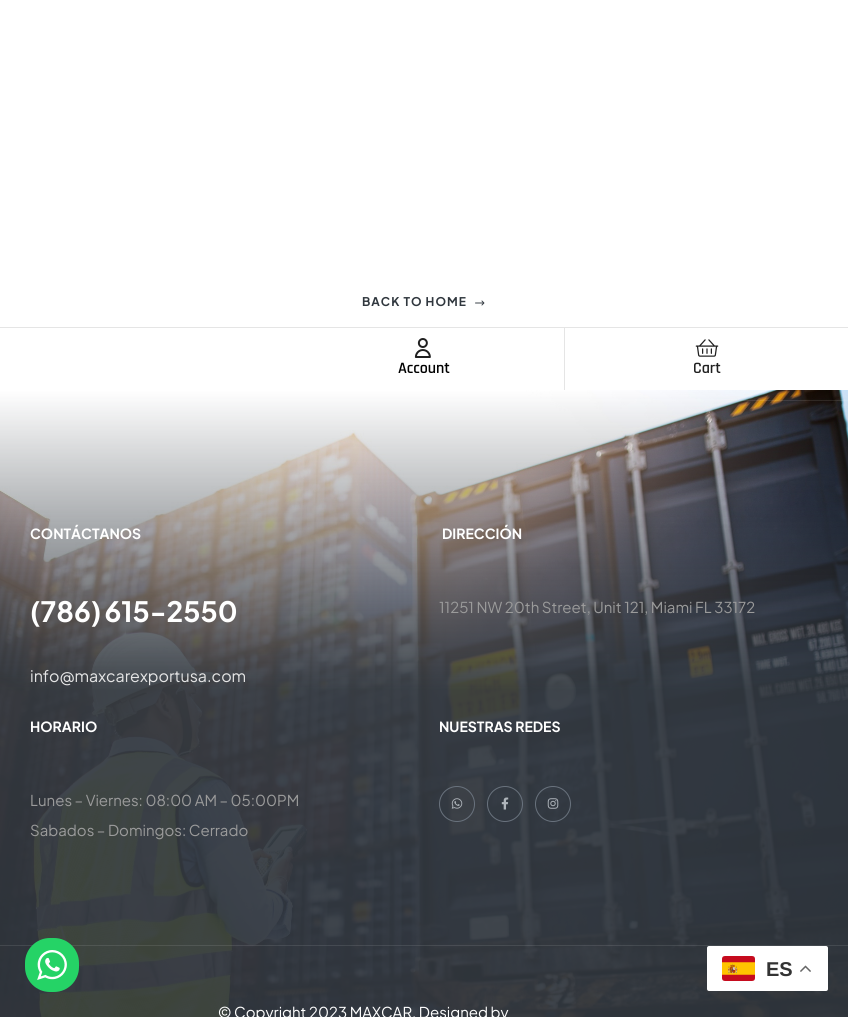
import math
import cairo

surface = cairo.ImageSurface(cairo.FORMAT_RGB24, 848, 1017)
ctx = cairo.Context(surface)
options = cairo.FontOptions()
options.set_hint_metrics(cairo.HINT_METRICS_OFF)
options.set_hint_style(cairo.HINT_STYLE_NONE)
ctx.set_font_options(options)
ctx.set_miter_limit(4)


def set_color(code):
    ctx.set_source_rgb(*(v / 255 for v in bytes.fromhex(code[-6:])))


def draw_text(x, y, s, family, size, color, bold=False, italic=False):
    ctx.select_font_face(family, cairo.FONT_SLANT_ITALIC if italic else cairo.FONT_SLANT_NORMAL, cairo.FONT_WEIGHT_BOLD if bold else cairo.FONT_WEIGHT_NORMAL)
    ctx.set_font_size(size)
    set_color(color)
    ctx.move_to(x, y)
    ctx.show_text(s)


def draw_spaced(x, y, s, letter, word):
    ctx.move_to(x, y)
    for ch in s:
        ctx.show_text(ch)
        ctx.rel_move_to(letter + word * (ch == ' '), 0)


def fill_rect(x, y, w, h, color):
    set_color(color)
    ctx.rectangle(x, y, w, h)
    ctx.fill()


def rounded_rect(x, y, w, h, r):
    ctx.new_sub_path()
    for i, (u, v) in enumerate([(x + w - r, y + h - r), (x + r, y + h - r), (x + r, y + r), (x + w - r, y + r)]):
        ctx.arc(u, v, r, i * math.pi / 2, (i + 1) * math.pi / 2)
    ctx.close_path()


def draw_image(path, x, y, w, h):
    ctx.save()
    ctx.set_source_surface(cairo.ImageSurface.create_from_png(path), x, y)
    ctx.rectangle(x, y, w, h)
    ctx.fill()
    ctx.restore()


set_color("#ffffff")
ctx.paint()
ctx.select_font_face("Plus Jakarta Sans", cairo.FONT_SLANT_NORMAL, cairo.FONT_WEIGHT_BOLD)
ctx.set_font_size(12)
set_color("#30373e")
draw_spaced(362, 306, "BACK TO HOME", 1, 0)
draw_image("assets/img1.png", 475, 300, 10, 6)
fill_rect(0, 327, 848, 1, "#e5e5e5")
fill_rect(564, 328, 1, 62, "#e5e5e5")
draw_image("assets/img2.png", 414, 338, 17, 20)
draw_text(398, 373, "Account", "Rajdhani SemiBold", 16, "#000000")
draw_image("assets/img3.png", 695, 339, 24, 18)
draw_text(693, 373, "Cart", "Rajdhani SemiBold", 16, "#202020")
draw_image("assets/img4.png", 0, 390, 848, 627)
ctx.set_source_rgba(1, 1, 1, 0.1)
ctx.rectangle(735, 400, 113, 1)
ctx.fill()
draw_text(30, 539, "CONTÁCTANOS", "Plus Jakarta Sans", 14, "#ffffff", bold=True)
ctx.set_font_size(28)
draw_spaced(30, 622, "(786) 615-2550", 0, -2)
draw_text(30, 682, "info@maxcarexportusa.com", "Plus Jakarta Sans", 16, "#e5e5e5")
draw_text(442, 539, "DIRECCIÓN", "Plus Jakarta Sans", 14, "#ffffff", bold=True)
draw_text(439, 613, "11251 NW 20th Street, Unit 121, Miami FL 33172", "Plus Jakarta Sans", 15, "#9b9b9b")
draw_text(30, 732, "HORARIO", "Plus Jakarta Sans", 14, "#ffffff", bold=True)
draw_text(30, 806, "Lunes – Viernes: 08:00 AM – 05:00PM", "Plus Jakarta Sans", 15, "#9b9b9b")
draw_text(30, 836, "Sabados – Domingos: Cerrado", "Plus Jakarta Sans", 15, "#9b9b9b")
draw_text(439, 732, "NUESTRAS REDES", "Plus Jakarta Sans", 14, "#ffffff", bold=True)
ctx.new_path()
ctx.arc(457, 804, 17.5, 0, 2 * math.pi)
set_color("#69727d")
ctx.set_line_width(1)
ctx.stroke()
draw_image("assets/img5.png", 451, 798, 12, 11)
ctx.arc(505, 804, 17.5, 0, 2 * math.pi)
ctx.stroke()
draw_image("assets/img6.png", 501, 797, 8, 13)
ctx.arc(553, 804, 17.5, 0, 2 * math.pi)
ctx.stroke()
draw_image("assets/img7.png", 547, 798, 12, 11)
ctx.set_source_rgba(1, 1, 1, 0.1)
ctx.rectangle(0, 945, 848, 1)
ctx.fill()
draw_text(218, 1018, "© Copyright 2023 MAXCAR. Designed by", "Plus Jakarta Sans", 15, "#ffffff")
set_color("#25d366")
rounded_rect(25, 938, 54, 54, 25)
ctx.fill()
draw_image("assets/img8.png", 37, 950, 30, 30)
set_color("#ffffff")
rounded_rect(707, 946, 121, 45, 2)
ctx.fill()
draw_image("assets/img9.png", 722, 956, 33, 25)
draw_text(766, 976, "ES", "Liberation Sans", 20, "#333333", bold=True)
draw_image("assets/img10.png", 800, 965, 11, 7)
surface.write_to_png("output.png")
